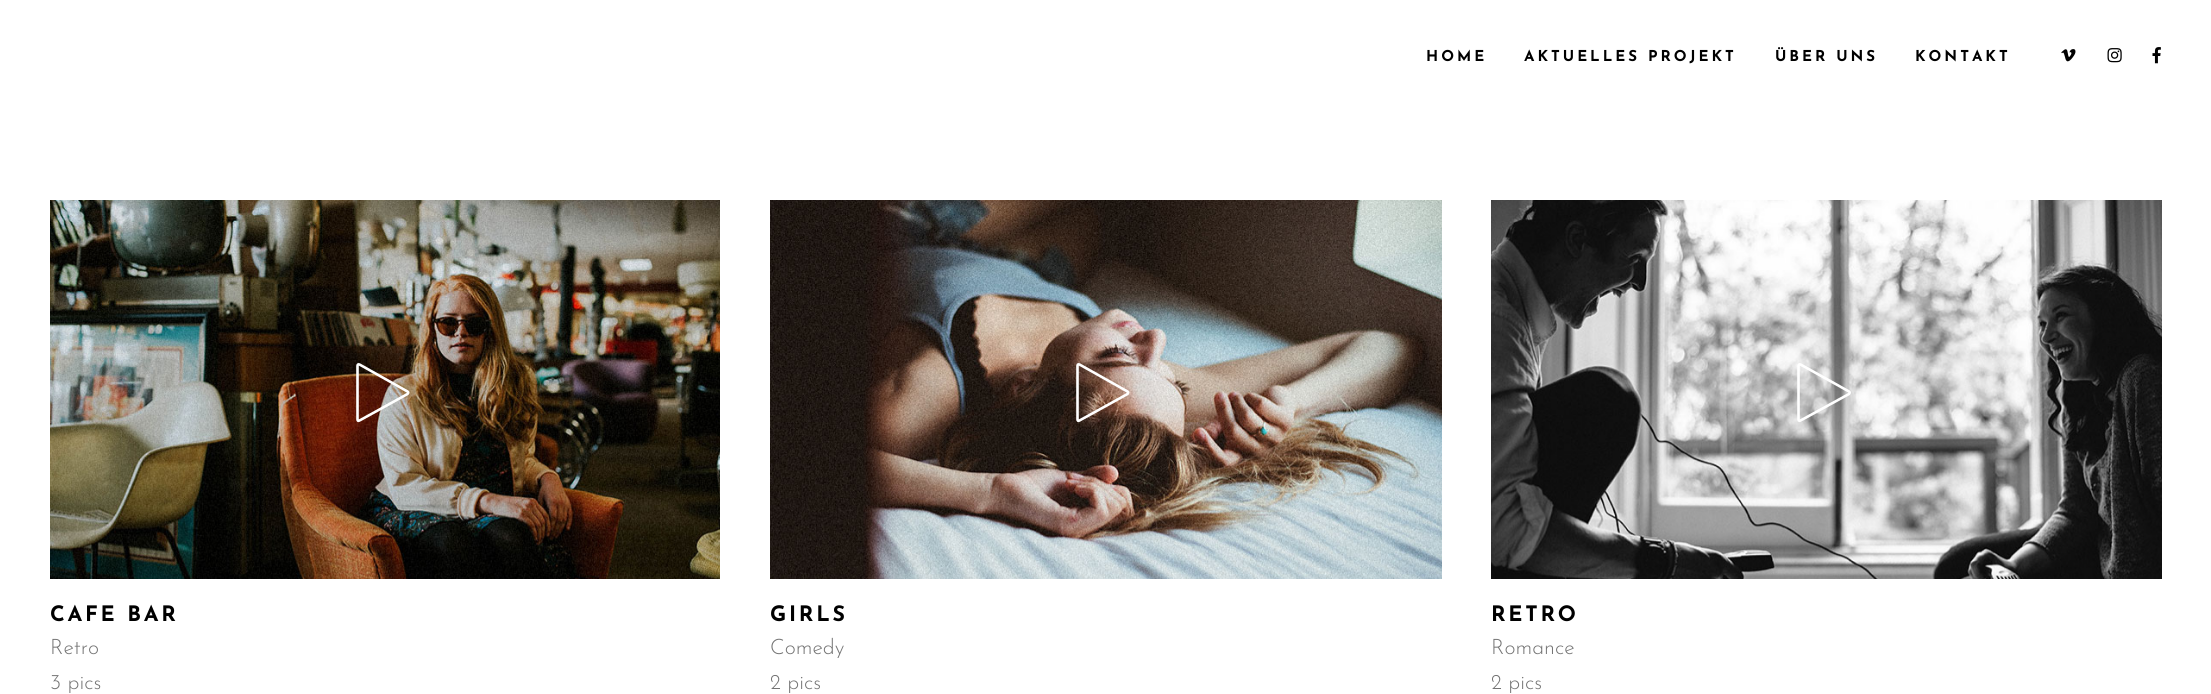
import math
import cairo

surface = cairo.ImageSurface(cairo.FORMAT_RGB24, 2211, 694)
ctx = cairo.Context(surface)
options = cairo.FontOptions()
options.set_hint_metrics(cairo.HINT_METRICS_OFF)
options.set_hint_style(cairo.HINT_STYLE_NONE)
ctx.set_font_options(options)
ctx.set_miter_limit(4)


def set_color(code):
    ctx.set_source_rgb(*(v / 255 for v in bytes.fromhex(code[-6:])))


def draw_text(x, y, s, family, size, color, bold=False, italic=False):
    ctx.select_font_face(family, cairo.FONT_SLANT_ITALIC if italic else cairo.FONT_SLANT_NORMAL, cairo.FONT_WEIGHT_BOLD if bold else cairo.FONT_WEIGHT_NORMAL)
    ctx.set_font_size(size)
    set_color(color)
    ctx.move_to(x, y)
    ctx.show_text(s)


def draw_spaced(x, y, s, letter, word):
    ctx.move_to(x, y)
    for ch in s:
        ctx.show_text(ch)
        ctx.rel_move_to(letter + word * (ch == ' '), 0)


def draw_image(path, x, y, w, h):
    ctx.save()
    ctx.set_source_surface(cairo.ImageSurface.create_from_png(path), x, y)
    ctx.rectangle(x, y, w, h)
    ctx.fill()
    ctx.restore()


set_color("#ffffff")
ctx.paint()
ctx.select_font_face("Josefin Sans", cairo.FONT_SLANT_NORMAL, cairo.FONT_WEIGHT_BOLD)
ctx.set_font_size(15)
set_color("#000000")
draw_spaced(1426, 61, "HOME", 3, 0)
draw_spaced(1524, 61, "AKTUELLES PROJEKT", 3, 0)
draw_spaced(1775, 61, "ÜBER UNS", 3, 0)
draw_spaced(1915, 61, "KONTAKT", 3, 0)
draw_image("assets/img1.png", 2061, 49, 15, 13)
draw_image("assets/img2.png", 2107, 48, 15, 15)
draw_image("assets/img3.png", 2152, 47, 9, 17)
draw_image("assets/img4.png", 50, 200, 670, 379)
ctx.new_path()
ctx.move_to(359.5, 420.5)
ctx.curve_to(358, 421.5, 357.5, 420.5, 357.5, 419.5)
ctx.line_to(357.5, 366)
ctx.curve_to(357.5, 364.5, 358, 364, 359.5, 364.5)
ctx.line_to(407.5, 391.5)
ctx.curve_to(408.5, 392, 408.5, 393, 407.5, 394)
ctx.close_path()
set_color("#ffffff")
ctx.set_line_width(2.6)
ctx.stroke()
ctx.set_font_size(21.25)
set_color("#000000")
draw_spaced(50, 621, "CAFE BAR", 2.75, 0)
draw_text(50, 654, "Retro", "Josefin Sans Light", 21.25, "#737373")
draw_text(50, 689, "3 pics", "Josefin Sans Light", 21.25, "#737373")
draw_image("assets/img5.png", 770, 200, 672, 379)
ctx.new_path()
ctx.move_to(1079.5, 420.5)
ctx.curve_to(1078, 421.5, 1077.5, 420.5, 1077.5, 419.5)
ctx.line_to(1077.5, 366)
ctx.curve_to(1077.5, 364.5, 1078, 364, 1079.5, 364.5)
ctx.line_to(1127.5, 391.5)
ctx.curve_to(1128.5, 392, 1128.5, 393, 1127.5, 394)
ctx.close_path()
set_color("#ffffff")
ctx.stroke()
ctx.select_font_face("Josefin Sans", cairo.FONT_SLANT_NORMAL, cairo.FONT_WEIGHT_BOLD)
set_color("#000000")
draw_spaced(770, 621, "GIRLS", 2.75, 0)
draw_text(770, 654, "Comedy", "Josefin Sans Light", 21.25, "#737373")
draw_text(770, 689, "2 pics", "Josefin Sans Light", 21.25, "#737373")
draw_image("assets/img6.png", 1491, 200, 671, 379)
ctx.new_path()
ctx.move_to(1800.5, 420.5)
ctx.curve_to(1799.5, 421.5, 1798.5, 420.5, 1798.5, 419.5)
ctx.line_to(1798.5, 366)
ctx.curve_to(1798.5, 364.5, 1799.5, 364, 1800.5, 364.5)
ctx.line_to(1849, 391.5)
ctx.curve_to(1850, 392, 1850, 393, 1849, 394)
ctx.close_path()
set_color("#ffffff")
ctx.stroke()
ctx.select_font_face("Josefin Sans", cairo.FONT_SLANT_NORMAL, cairo.FONT_WEIGHT_BOLD)
set_color("#000000")
draw_spaced(1491, 621, "RETRO", 2.75, 0)
draw_text(1491, 654, "Romance", "Josefin Sans Light", 21.25, "#737373")
draw_text(1491, 689, "2 pics", "Josefin Sans Light", 21.25, "#737373")
surface.write_to_png("output.png")
